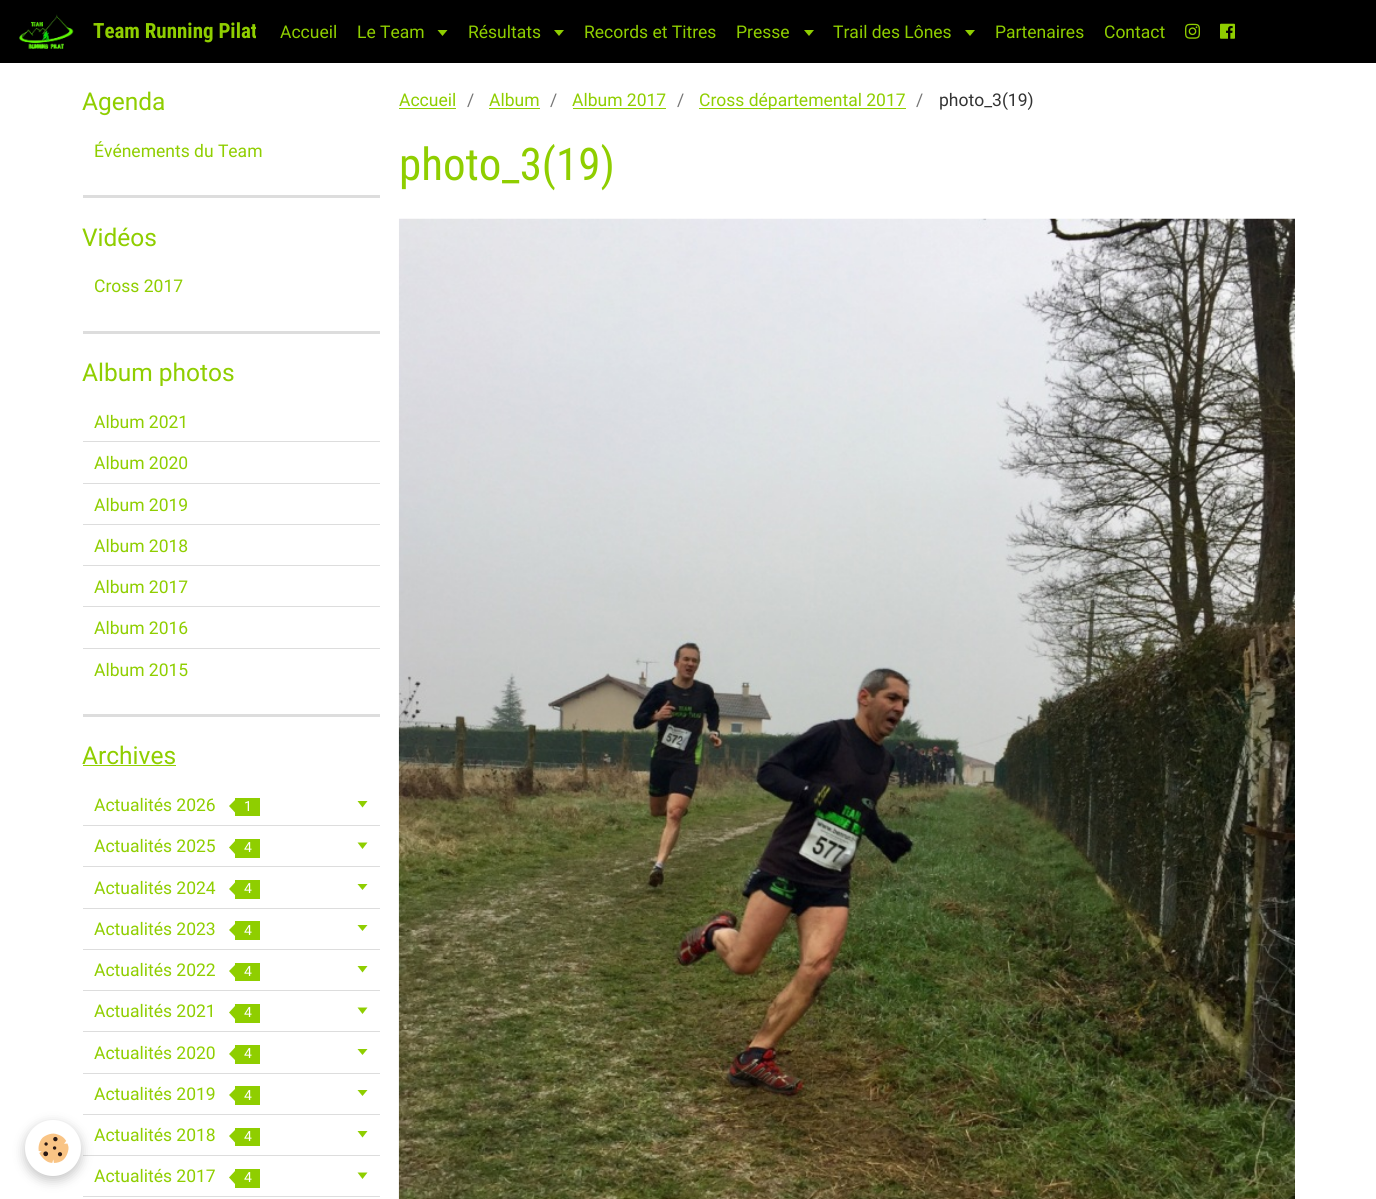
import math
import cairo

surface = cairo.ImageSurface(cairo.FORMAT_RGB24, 1376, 1199)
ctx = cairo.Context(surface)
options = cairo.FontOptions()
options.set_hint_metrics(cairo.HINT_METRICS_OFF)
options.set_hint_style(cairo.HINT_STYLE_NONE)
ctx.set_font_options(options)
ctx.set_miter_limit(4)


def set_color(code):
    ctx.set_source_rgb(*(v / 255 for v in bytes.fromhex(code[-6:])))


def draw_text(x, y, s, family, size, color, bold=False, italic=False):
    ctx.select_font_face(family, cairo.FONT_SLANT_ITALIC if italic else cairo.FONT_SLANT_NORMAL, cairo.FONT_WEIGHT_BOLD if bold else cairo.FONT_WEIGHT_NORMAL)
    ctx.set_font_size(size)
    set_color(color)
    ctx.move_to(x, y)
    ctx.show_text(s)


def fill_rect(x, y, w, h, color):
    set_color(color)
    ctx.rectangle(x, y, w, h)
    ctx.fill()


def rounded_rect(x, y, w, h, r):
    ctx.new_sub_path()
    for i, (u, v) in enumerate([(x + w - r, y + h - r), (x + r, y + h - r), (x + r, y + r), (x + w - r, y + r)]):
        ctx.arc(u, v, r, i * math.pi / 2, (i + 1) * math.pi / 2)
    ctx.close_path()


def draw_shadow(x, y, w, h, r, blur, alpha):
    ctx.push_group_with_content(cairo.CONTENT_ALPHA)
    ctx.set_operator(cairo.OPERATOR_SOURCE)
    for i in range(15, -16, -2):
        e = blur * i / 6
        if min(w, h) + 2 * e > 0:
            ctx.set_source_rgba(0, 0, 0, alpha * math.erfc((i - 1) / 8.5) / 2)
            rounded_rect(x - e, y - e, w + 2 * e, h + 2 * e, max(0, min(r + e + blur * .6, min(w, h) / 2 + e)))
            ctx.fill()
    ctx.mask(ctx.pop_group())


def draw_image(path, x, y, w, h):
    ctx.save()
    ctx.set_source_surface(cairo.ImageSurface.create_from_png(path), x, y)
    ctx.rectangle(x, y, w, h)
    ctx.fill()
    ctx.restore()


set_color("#ffffff")
ctx.paint()
fill_rect(0, 0, 1376, 63, "#000000")
draw_image("assets/img1.png", 19, 14, 55, 35)
ctx.save()
ctx.rectangle(93, 16, 163, 30)
ctx.clip()
draw_text(93, 38, "Team Running Pilat", "Roboto Condensed", 21, "#8fce00", bold=True)
ctx.restore()
draw_text(280, 38, "Accueil", "Roboto", 17.5, "#8fce00")
draw_text(357, 38, "Le Team", "Roboto", 17.5, "#8fce00")
ctx.new_path()
ctx.move_to(437.5, 30)
ctx.line_to(447.5, 30)
ctx.line_to(442.5, 36)
ctx.close_path()
ctx.fill()
draw_text(468, 38, "Résultats", "Roboto", 17.5, "#8fce00")
ctx.new_path()
ctx.move_to(554, 30)
ctx.line_to(564, 30)
ctx.line_to(559, 36)
ctx.close_path()
ctx.fill()
draw_text(584, 38, "Records et Titres", "Roboto", 17.5, "#8fce00")
draw_text(736, 38, "Presse", "Roboto", 17.5, "#8fce00")
ctx.new_path()
ctx.move_to(804, 30)
ctx.line_to(814, 30)
ctx.line_to(809, 36)
ctx.close_path()
ctx.fill()
draw_text(833, 38, "Trail des Lônes", "Roboto", 17.5, "#8fce00")
ctx.new_path()
ctx.move_to(965, 30)
ctx.line_to(975, 30)
ctx.line_to(970, 36)
ctx.close_path()
ctx.fill()
draw_text(995, 38, "Partenaires", "Roboto", 17.5, "#8fce00")
draw_text(1104, 38, "Contact", "Roboto", 17.5, "#8fce00")
draw_image("assets/img2.png", 1185, 23, 15, 16)
draw_image("assets/img3.png", 1220, 23, 15, 16)
fill_rect(83, 1114, 297, 1, "#dddddd")
fill_rect(83, 1155, 297, 1, "#dddddd")
fill_rect(83, 1196, 297, 1, "#dddddd")
set_color("#000000")
draw_shadow(25, 1124, 56, 56, 28, 6, 0.24)
set_color("#ffffff")
ctx.arc(53, 1148, 28, 0, 2 * math.pi)
ctx.fill()
draw_image("assets/img4.png", 38, 1133, 31, 30)
fill_rect(83, 195, 297, 3, "#dddddd")
draw_text(82, 110, "Agenda", "Roboto", 24.5, "#8fce00")
draw_text(94, 157, "Événements du Team", "Roboto", 17.5, "#8fce00")
fill_rect(83, 331, 297, 3, "#dddddd")
draw_text(82, 246, "Vidéos", "Roboto", 24.5, "#8fce00")
draw_text(94, 292, "Cross 2017", "Roboto", 17.5, "#8fce00")
fill_rect(83, 714, 297, 3, "#dddddd")
draw_text(82, 381, "Album photos", "Roboto", 24.5, "#8fce00")
fill_rect(83, 441, 297, 1, "#dddddd")
draw_text(94, 428, "Album 2021", "Roboto", 17.5, "#8fce00")
fill_rect(83, 483, 297, 1, "#dddddd")
draw_text(94, 469, "Album 2020", "Roboto", 17.5, "#8fce00")
fill_rect(83, 524, 297, 1, "#dddddd")
draw_text(94, 511, "Album 2019", "Roboto", 17.5, "#8fce00")
fill_rect(83, 565, 297, 1, "#dddddd")
draw_text(94, 552, "Album 2018", "Roboto", 17.5, "#8fce00")
fill_rect(83, 606, 297, 1, "#dddddd")
draw_text(94, 593, "Album 2017", "Roboto", 17.5, "#8fce00")
fill_rect(83, 648, 297, 1, "#dddddd")
draw_text(94, 634, "Album 2016", "Roboto", 17.5, "#8fce00")
draw_text(94, 676, "Album 2015", "Roboto", 17.5, "#8fce00")
draw_text(82, 764, "Archives", "Roboto", 24.5, "#8fce00")
fill_rect(83, 765, 93, 1, "#8fce00")
fill_rect(83, 825, 297, 1, "#dddddd")
draw_text(94, 811, "Actualités 2026", "Roboto", 17.5, "#8fce00")
fill_rect(235, 798, 25, 18, "#8fce00")
ctx.new_path()
ctx.move_to(235, 800)
ctx.line_to(235, 812.5)
ctx.line_to(229, 806)
ctx.close_path()
ctx.fill()
draw_text(244, 811, "1", "Roboto", 14, "#ffffff")
set_color("#8fce00")
ctx.new_path()
ctx.move_to(357.5, 801)
ctx.line_to(367.5, 801)
ctx.line_to(362.5, 807.5)
ctx.close_path()
ctx.fill()
fill_rect(83, 866, 297, 1, "#dddddd")
draw_text(94, 852, "Actualités 2025", "Roboto", 17.5, "#8fce00")
fill_rect(235, 839, 25, 19, "#8fce00")
ctx.new_path()
ctx.move_to(235, 841)
ctx.line_to(235, 854)
ctx.line_to(229, 847.5)
ctx.close_path()
ctx.fill()
draw_text(244, 852, "4", "Roboto", 14, "#ffffff")
set_color("#8fce00")
ctx.new_path()
ctx.move_to(357.5, 842.5)
ctx.line_to(367.5, 842.5)
ctx.line_to(362.5, 849)
ctx.close_path()
ctx.fill()
fill_rect(83, 908, 297, 1, "#dddddd")
draw_text(94, 894, "Actualités 2024", "Roboto", 17.5, "#8fce00")
fill_rect(235, 880, 25, 19, "#8fce00")
ctx.new_path()
ctx.move_to(235, 882.5)
ctx.line_to(235, 895)
ctx.line_to(229, 889)
ctx.close_path()
ctx.fill()
draw_text(244, 893, "4", "Roboto", 14, "#ffffff")
set_color("#8fce00")
ctx.new_path()
ctx.move_to(357.5, 884)
ctx.line_to(367.5, 884)
ctx.line_to(362.5, 890)
ctx.close_path()
ctx.fill()
fill_rect(83, 949, 297, 1, "#dddddd")
draw_text(94, 935, "Actualités 2023", "Roboto", 17.5, "#8fce00")
fill_rect(235, 921, 25, 19, "#8fce00")
ctx.new_path()
ctx.move_to(235, 924)
ctx.line_to(235, 936)
ctx.line_to(229, 930)
ctx.close_path()
ctx.fill()
draw_text(244, 935, "4", "Roboto", 14, "#ffffff")
set_color("#8fce00")
ctx.new_path()
ctx.move_to(357.5, 925)
ctx.line_to(367.5, 925)
ctx.line_to(362.5, 931)
ctx.close_path()
ctx.fill()
fill_rect(83, 990, 297, 1, "#dddddd")
draw_text(94, 976, "Actualités 2022", "Roboto", 17.5, "#8fce00")
fill_rect(235, 963, 25, 18, "#8fce00")
ctx.new_path()
ctx.move_to(235, 965)
ctx.line_to(235, 977.5)
ctx.line_to(229, 971)
ctx.close_path()
ctx.fill()
draw_text(244, 976, "4", "Roboto", 14, "#ffffff")
set_color("#8fce00")
ctx.new_path()
ctx.move_to(357.5, 966)
ctx.line_to(367.5, 966)
ctx.line_to(362.5, 972.5)
ctx.close_path()
ctx.fill()
fill_rect(83, 1031, 297, 1, "#dddddd")
draw_text(94, 1017, "Actualités 2021", "Roboto", 17.5, "#8fce00")
fill_rect(235, 1004, 25, 19, "#8fce00")
ctx.new_path()
ctx.move_to(235, 1006)
ctx.line_to(235, 1019)
ctx.line_to(229, 1012.5)
ctx.close_path()
ctx.fill()
draw_text(244, 1017, "4", "Roboto", 14, "#ffffff")
set_color("#8fce00")
ctx.new_path()
ctx.move_to(357.5, 1007.5)
ctx.line_to(367.5, 1007.5)
ctx.line_to(362.5, 1014)
ctx.close_path()
ctx.fill()
fill_rect(83, 1073, 297, 1, "#dddddd")
draw_text(94, 1059, "Actualités 2020", "Roboto", 17.5, "#8fce00")
fill_rect(235, 1045, 25, 19, "#8fce00")
ctx.new_path()
ctx.move_to(235, 1047.5)
ctx.line_to(235, 1060)
ctx.line_to(229, 1054)
ctx.close_path()
ctx.fill()
draw_text(244, 1058, "4", "Roboto", 14, "#ffffff")
set_color("#8fce00")
ctx.new_path()
ctx.move_to(357.5, 1049)
ctx.line_to(367.5, 1049)
ctx.line_to(362.5, 1055)
ctx.close_path()
ctx.fill()
draw_text(94, 1100, "Actualités 2019", "Roboto", 17.5, "#8fce00")
fill_rect(235, 1086, 25, 19, "#8fce00")
ctx.new_path()
ctx.move_to(235, 1089)
ctx.line_to(235, 1101)
ctx.line_to(229, 1095)
ctx.close_path()
ctx.fill()
draw_text(244, 1100, "4", "Roboto", 14, "#ffffff")
set_color("#8fce00")
ctx.new_path()
ctx.move_to(357.5, 1090)
ctx.line_to(367.5, 1090)
ctx.line_to(362.5, 1096)
ctx.close_path()
ctx.fill()
draw_text(94, 1141, "Actualités 2018", "Roboto", 17.5, "#8fce00")
fill_rect(235, 1128, 25, 18, "#8fce00")
ctx.new_path()
ctx.move_to(235, 1130)
ctx.line_to(235, 1142.5)
ctx.line_to(229, 1136)
ctx.close_path()
ctx.fill()
draw_text(244, 1141, "4", "Roboto", 14, "#ffffff")
set_color("#8fce00")
ctx.new_path()
ctx.move_to(357.5, 1131)
ctx.line_to(367.5, 1131)
ctx.line_to(362.5, 1137.5)
ctx.close_path()
ctx.fill()
draw_text(94, 1182, "Actualités 2017", "Roboto", 17.5, "#8fce00")
fill_rect(235, 1169, 25, 19, "#8fce00")
ctx.new_path()
ctx.move_to(235, 1171)
ctx.line_to(235, 1184)
ctx.line_to(229, 1177.5)
ctx.close_path()
ctx.fill()
draw_text(244, 1182, "4", "Roboto", 14, "#ffffff")
set_color("#8fce00")
ctx.new_path()
ctx.move_to(357.5, 1172.5)
ctx.line_to(367.5, 1172.5)
ctx.line_to(362.5, 1179)
ctx.close_path()
ctx.fill()
draw_text(399, 106, "Accueil", "Roboto", 17.5, "#8fce00")
fill_rect(399, 108, 57, 1, "#8fce00")
draw_text(467, 106, "/", "Roboto", 17.5, "#767676")
draw_text(489, 106, "Album", "Roboto", 17.5, "#8fce00")
fill_rect(489, 108, 51, 1, "#8fce00")
draw_text(550, 106, "/", "Roboto", 17.5, "#767676")
draw_text(572, 106, "Album 2017", "Roboto", 17.5, "#8fce00")
fill_rect(573, 108, 93, 1, "#8fce00")
draw_text(677, 106, "/", "Roboto", 17.5, "#767676")
fill_rect(699, 108, 207, 1, "#8fce00")
draw_text(699, 106, "Cross départemental 2017", "Roboto", 17.5, "#8fce00")
draw_text(916, 106, "/", "Roboto", 17.5, "#767676")
draw_text(939, 106, "photo_3(19)", "Roboto", 17.5, "#333333")
draw_text(399, 180, "photo_3(19)", "Roboto Condensed", 45, "#8fce00")
draw_image("assets/img5.png", 398, 218, 897, 981)
surface.write_to_png("output.png")
